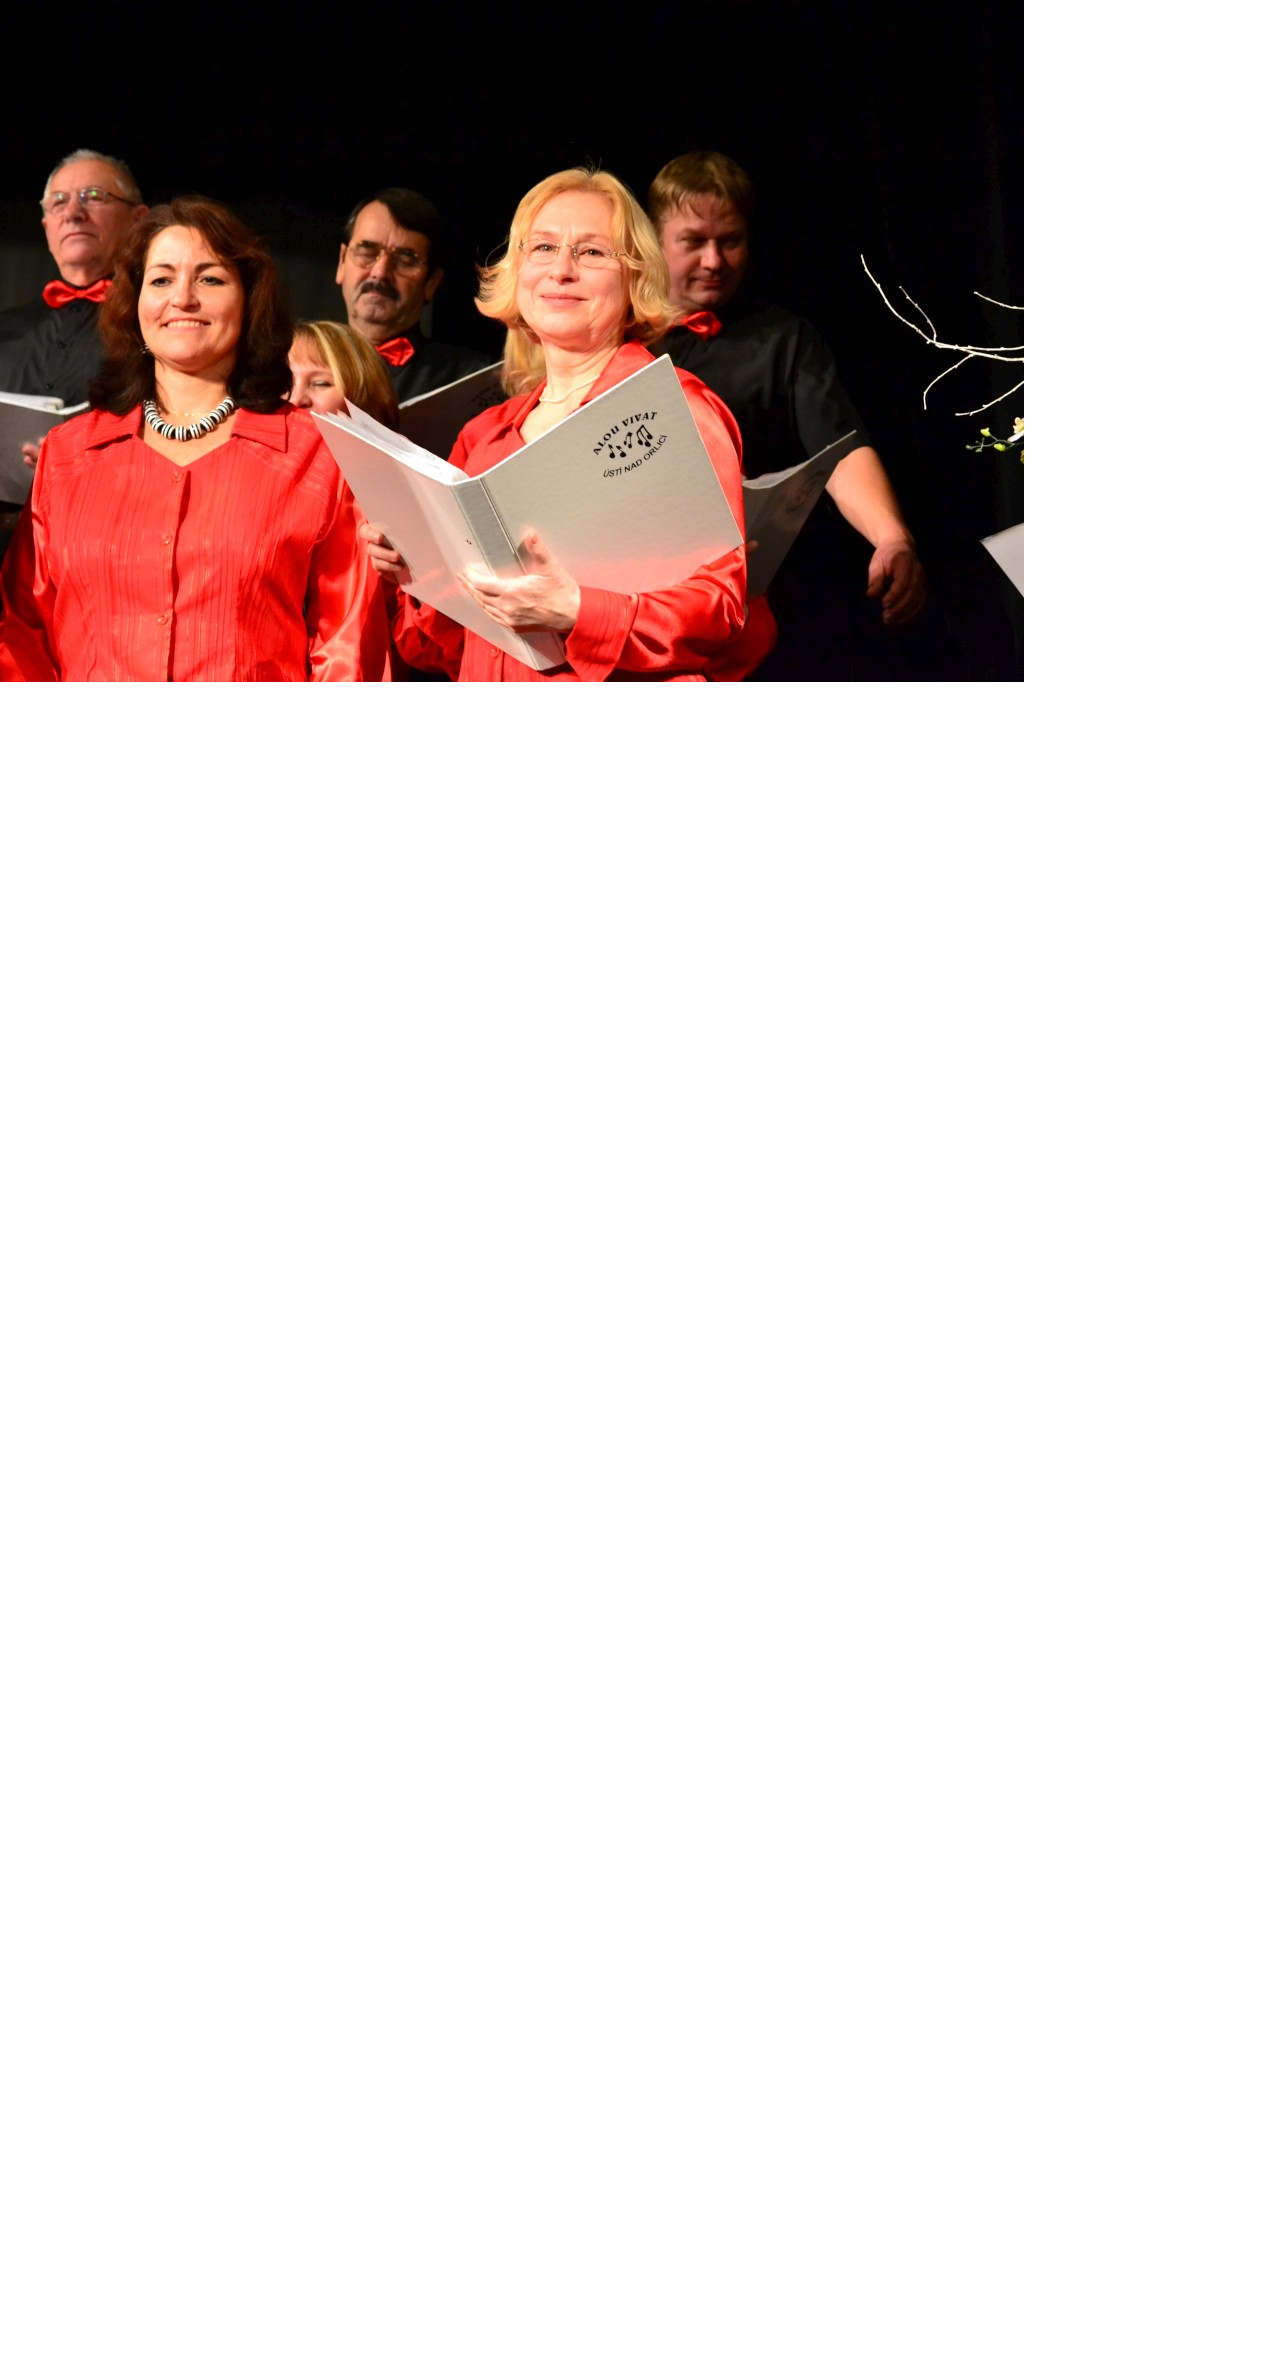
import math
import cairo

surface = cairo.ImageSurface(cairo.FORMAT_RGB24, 1277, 2375)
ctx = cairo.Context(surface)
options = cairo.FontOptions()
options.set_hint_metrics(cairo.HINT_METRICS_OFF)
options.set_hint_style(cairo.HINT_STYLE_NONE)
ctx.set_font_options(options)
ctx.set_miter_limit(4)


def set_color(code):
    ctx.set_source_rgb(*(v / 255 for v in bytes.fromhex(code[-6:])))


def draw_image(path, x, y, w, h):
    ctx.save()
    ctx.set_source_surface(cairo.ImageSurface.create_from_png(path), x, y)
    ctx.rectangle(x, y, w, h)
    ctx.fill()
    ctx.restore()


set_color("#ffffff")
ctx.paint()
draw_image("assets/img1.png", 0, 0, 1024, 682)
surface.write_to_png("output.png")
